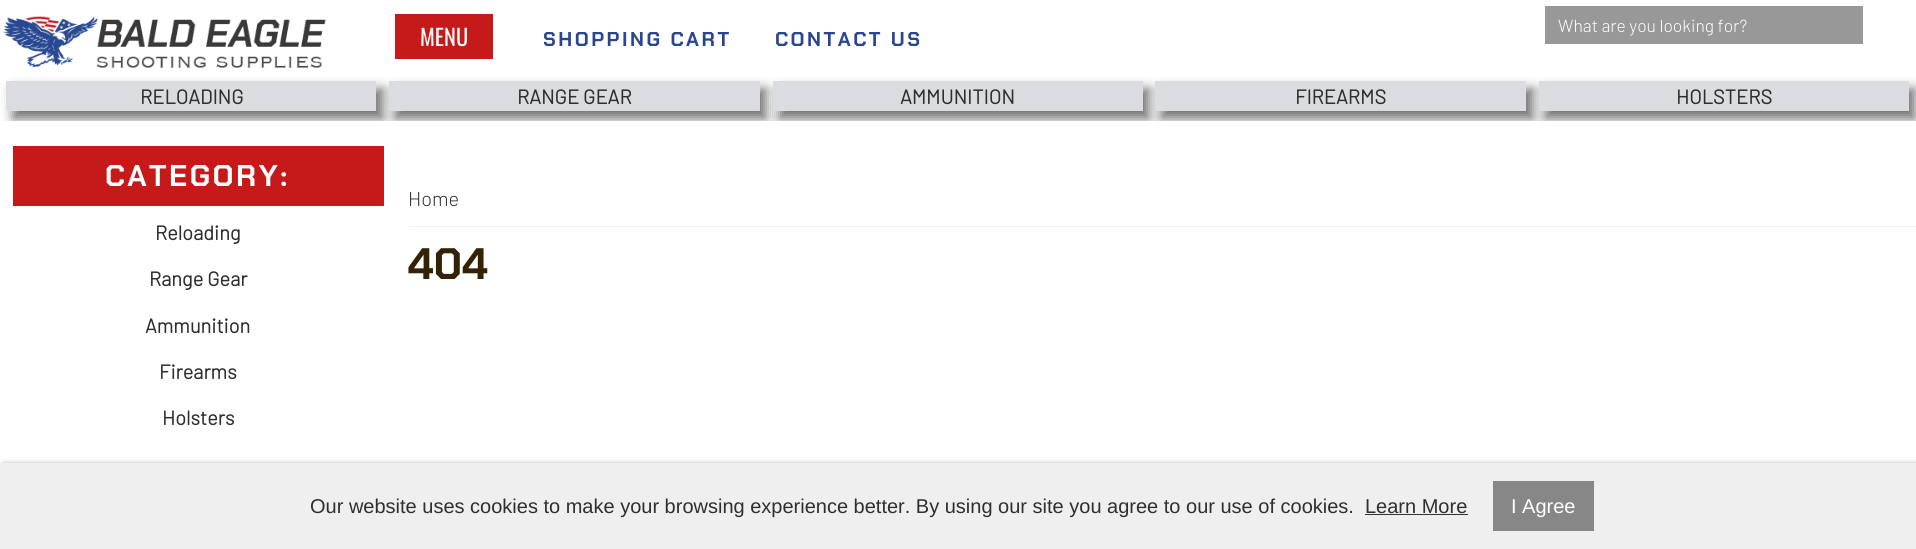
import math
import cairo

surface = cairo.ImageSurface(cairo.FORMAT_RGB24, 1916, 549)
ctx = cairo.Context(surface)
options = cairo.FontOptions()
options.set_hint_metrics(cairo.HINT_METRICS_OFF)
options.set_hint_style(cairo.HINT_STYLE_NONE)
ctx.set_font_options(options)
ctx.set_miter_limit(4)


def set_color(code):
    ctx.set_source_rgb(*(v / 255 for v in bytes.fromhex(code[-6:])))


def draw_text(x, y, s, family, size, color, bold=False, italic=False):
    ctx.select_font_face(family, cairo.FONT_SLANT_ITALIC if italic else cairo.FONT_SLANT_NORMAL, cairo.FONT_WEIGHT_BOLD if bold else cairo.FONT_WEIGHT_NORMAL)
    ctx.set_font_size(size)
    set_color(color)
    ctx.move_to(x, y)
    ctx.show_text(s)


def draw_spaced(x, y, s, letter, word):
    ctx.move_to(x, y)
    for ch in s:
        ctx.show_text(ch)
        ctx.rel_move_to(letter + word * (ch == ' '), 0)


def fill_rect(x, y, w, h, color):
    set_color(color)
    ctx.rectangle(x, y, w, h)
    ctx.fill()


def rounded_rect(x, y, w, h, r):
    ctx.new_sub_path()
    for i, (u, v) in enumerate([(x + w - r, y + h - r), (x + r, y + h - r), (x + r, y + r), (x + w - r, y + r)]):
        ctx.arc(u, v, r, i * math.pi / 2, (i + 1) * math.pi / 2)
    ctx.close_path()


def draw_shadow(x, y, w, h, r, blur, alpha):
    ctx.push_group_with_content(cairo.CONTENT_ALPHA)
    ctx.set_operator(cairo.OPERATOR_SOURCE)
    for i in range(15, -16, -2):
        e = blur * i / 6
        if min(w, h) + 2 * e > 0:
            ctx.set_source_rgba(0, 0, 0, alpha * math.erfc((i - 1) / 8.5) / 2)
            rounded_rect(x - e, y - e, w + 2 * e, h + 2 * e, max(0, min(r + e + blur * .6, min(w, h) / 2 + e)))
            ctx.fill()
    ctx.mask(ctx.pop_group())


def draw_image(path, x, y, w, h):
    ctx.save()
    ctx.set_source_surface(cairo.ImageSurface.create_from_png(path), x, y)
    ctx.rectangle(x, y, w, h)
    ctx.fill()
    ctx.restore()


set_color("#ffffff")
ctx.paint()
draw_image("assets/img1.png", 3, 16, 323, 53)
fill_rect(395, 14, 98, 45, "#c61919")
draw_text(420, 46, "MENU", "Oswald", 22.5, "#ffffff")
ctx.select_font_face("Chakra Petch", cairo.FONT_SLANT_NORMAL, cairo.FONT_WEIGHT_BOLD)
ctx.set_font_size(20)
set_color("#294690")
draw_spaced(543, 46, "SHOPPING CART", 2.5, 0)
draw_spaced(775, 46, "CONTACT US", 2.5, 0)
fill_rect(1545, 6, 318, 38, "#989898")
draw_text(1558, 32, "What are you looking for?", "Barlow Light", 17.5, "#ffffff")
ctx.save()
ctx.rectangle(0, 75, 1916, 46)
ctx.clip()
set_color("#000000")
draw_shadow(13, 89, 370, 30, 0, 6, 0.56)
ctx.restore()
fill_rect(6, 81, 370, 30, "#dbdcdf")
draw_text(140, 104, "RELOADING", "Barlow", 20, "#2f2f2f", bold=True)
ctx.save()
ctx.rectangle(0, 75, 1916, 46)
ctx.clip()
set_color("#000000")
draw_shadow(395, 89, 371, 30, 0, 6, 0.56)
ctx.restore()
fill_rect(389, 81, 371, 30, "#dbdcdf")
draw_text(517, 104, "RANGE GEAR", "Barlow", 20, "#2f2f2f", bold=True)
ctx.save()
ctx.rectangle(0, 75, 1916, 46)
ctx.clip()
set_color("#000000")
draw_shadow(779, 89, 370, 30, 0, 6, 0.56)
ctx.restore()
fill_rect(773, 81, 370, 30, "#dbdcdf")
draw_text(900, 104, "AMMUNITION", "Barlow", 20, "#2f2f2f", bold=True)
ctx.save()
ctx.rectangle(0, 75, 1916, 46)
ctx.clip()
set_color("#000000")
draw_shadow(1161, 89, 372, 30, 0, 6, 0.56)
ctx.restore()
fill_rect(1155, 81, 371, 30, "#dbdcdf")
draw_text(1295, 104, "FIREARMS", "Barlow", 20, "#2f2f2f", bold=True)
ctx.save()
ctx.rectangle(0, 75, 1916, 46)
ctx.clip()
set_color("#000000")
draw_shadow(1545, 89, 370, 30, 0, 6, 0.56)
ctx.restore()
fill_rect(1539, 81, 370, 30, "#dbdcdf")
draw_text(1676, 104, "HOLSTERS", "Barlow", 20, "#2f2f2f", bold=True)
fill_rect(13, 146, 371, 60, "#c61919")
ctx.select_font_face("Chakra Petch", cairo.FONT_SLANT_NORMAL, cairo.FONT_WEIGHT_BOLD)
ctx.set_font_size(30)
set_color("#ffffff")
draw_spaced(105, 186, "CATEGORY:", 2.5, 0)
draw_text(155, 240, "Reloading", "Barlow", 20, "#2f2f2f", bold=True)
draw_text(149, 286, "Range Gear", "Barlow", 20, "#2f2f2f", bold=True)
draw_text(145, 333, "Ammunition", "Barlow", 20, "#2f2f2f", bold=True)
draw_text(159, 379, "Firearms", "Barlow", 20, "#2f2f2f", bold=True)
draw_text(162, 425, "Holsters", "Barlow", 20, "#2f2f2f", bold=True)
fill_rect(409, 226, 1507, 1, "#f2f2f2")
draw_text(408, 206, "Home", "Barlow Light", 20, "#2f2f2f")
draw_text(408, 279, "404", "Chakra Petch", 44, "#332204", bold=True)
set_color("#000000")
draw_shadow(4, 465, 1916, 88, 0, 3, 0.6)
fill_rect(0, 463, 1916, 86, "#efefef")
draw_text(310, 513, "Our website uses cookies to make your browsing experience better. By using our site you agree to our use of cookies.", "Liberation Sans", 20, "#2f2f2f")
draw_text(1365, 513, "Learn More", "Liberation Sans", 20, "#2f2f2f")
fill_rect(1365, 514, 103, 1, "#323232")
fill_rect(1493, 481, 101, 50, "#878787")
draw_text(1511, 513, "I Agree", "Liberation Sans", 20, "#ffffff")
surface.write_to_png("output.png")
